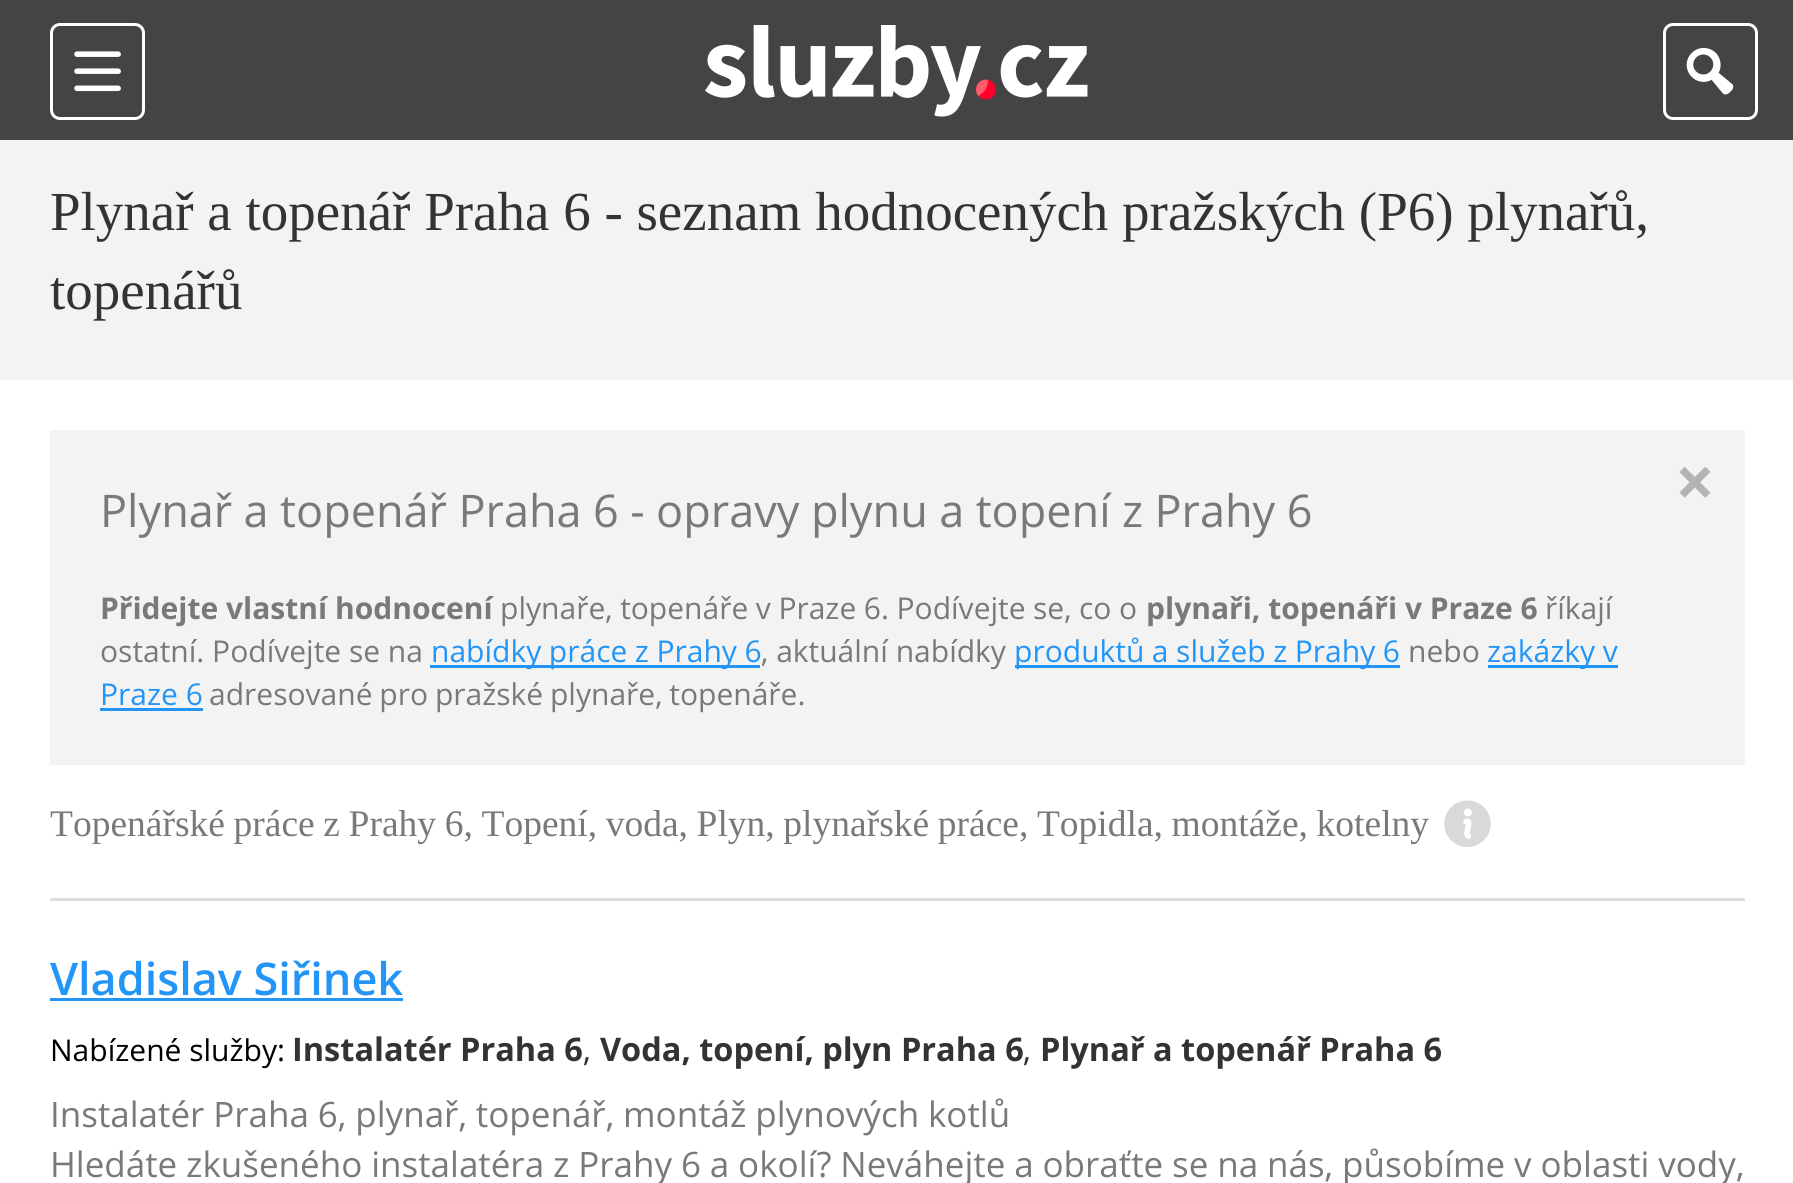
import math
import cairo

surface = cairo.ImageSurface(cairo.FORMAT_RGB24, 1793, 1183)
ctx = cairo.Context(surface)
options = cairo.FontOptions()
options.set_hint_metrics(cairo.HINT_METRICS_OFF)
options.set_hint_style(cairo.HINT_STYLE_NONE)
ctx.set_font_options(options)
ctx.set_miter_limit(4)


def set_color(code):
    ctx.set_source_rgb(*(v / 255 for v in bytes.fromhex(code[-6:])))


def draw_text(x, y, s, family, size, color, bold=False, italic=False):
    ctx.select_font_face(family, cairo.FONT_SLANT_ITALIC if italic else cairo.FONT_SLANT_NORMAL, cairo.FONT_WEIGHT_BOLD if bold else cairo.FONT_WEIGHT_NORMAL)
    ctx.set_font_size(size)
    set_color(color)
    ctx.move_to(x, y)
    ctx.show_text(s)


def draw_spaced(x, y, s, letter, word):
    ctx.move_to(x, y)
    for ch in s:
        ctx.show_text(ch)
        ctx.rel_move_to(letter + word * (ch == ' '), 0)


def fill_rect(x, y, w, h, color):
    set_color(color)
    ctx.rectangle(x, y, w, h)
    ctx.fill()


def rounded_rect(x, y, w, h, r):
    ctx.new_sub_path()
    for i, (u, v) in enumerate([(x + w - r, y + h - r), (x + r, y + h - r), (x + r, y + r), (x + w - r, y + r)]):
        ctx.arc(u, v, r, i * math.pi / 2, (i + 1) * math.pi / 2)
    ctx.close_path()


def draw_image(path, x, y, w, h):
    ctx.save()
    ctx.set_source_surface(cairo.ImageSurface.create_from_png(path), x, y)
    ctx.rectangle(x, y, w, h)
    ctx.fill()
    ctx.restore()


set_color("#ffffff")
ctx.paint()
fill_rect(0, 0, 1793, 140, "#444444")
rounded_rect(51.5, 24.5, 92, 94, 8.5)
set_color("#ffffff")
ctx.set_line_width(3)
ctx.stroke()
draw_image("assets/img1.png", 74, 51, 47, 41)
draw_image("assets/img2.png", 705, 25, 383, 92)
rounded_rect(1664.5, 24.5, 92, 94, 8.5)
ctx.stroke()
draw_image("assets/img3.png", 1686, 47, 48, 48)
fill_rect(0, 140, 1793, 240, "#f3f3f3")
draw_text(50, 230, "Plynař a topenář Praha 6 - seznam hodnocených pražských (P6) plynařů,", "Liberation Serif", 55, "#333333")
draw_text(50, 309, "topenářů", "Liberation Serif", 55, "#333333")
fill_rect(50, 898, 1695, 3, "#dddddd")
fill_rect(50, 430, 1695, 335, "#f3f3f3")
draw_text(1675, 507, "×", "Open Sans", 70, "#b3b3b3", bold=True)
ctx.select_font_face("Open Sans")
ctx.set_font_size(45)
set_color("#797979")
draw_spaced(100, 527, "Plynař a topenář Praha 6 - opravy plynu a topení z Prahy 6", 0, -0.25)
draw_text(100, 619, "Přidejte vlastní hodnocení", "Open Sans", 30, "#797979", bold=True)
ctx.select_font_face("Open Sans")
draw_spaced(500, 619, "plynaře, topenáře v Praze 6. Podívejte se, co o", 0, -0.25)
draw_text(1146, 619, "plynaři, topenáři v Praze 6", "Open Sans", 30, "#797979", bold=True)
draw_text(1545, 619, "říkají", "Open Sans", 30, "#797979")
draw_text(100, 662, "ostatní. Podívejte se na", "Open Sans", 30, "#797979")
fill_rect(430, 665, 330, 3, "#2395f7")
draw_spaced(431, 662, "nabídky práce z Prahy 6", 0, -0.25)
draw_text(761, 662, ", aktuální nabídky", "Open Sans", 30, "#797979")
fill_rect(1015, 665, 385, 3, "#2395f7")
draw_spaced(1014, 662, "produktů a služeb z Prahy 6", 0, -0.25)
draw_text(1408, 662, "nebo", "Open Sans", 30, "#797979")
fill_rect(1488, 665, 130, 3, "#2395f7")
draw_text(1487, 662, "zakázky v", "Open Sans", 30, "#2395f7")
draw_text(100, 705, "Praze 6", "Open Sans", 30, "#2395f7")
fill_rect(100, 708, 103, 3, "#2395f7")
set_color("#797979")
draw_spaced(209, 705, "adresované pro pražské plynaře, topenáře.", 0, -1)
ctx.select_font_face("Liberation Serif")
ctx.set_font_size(37.5)
draw_spaced(50, 836, "Topenářské práce z Prahy 6, Topení, voda, Plyn, plynařské práce, Topidla, montáže, kotelny", 0, -0.75)
draw_image("assets/img4.png", 1444, 800, 47, 47)
draw_text(50, 995, "Vladislav Siřinek", "Open Sans SemiBold", 45, "#2395f7")
fill_rect(50, 998, 353, 3, "#2395f7")
draw_text(50, 1061, "Nabízené služby:", "Open Sans", 30, "#000000")
draw_text(292, 1061, "Instalatér Praha 6", "Open Sans", 32.5, "#333333", bold=True)
draw_text(583, 1061, ",", "Open Sans", 32.5, "#333333")
draw_text(600, 1061, "Voda, topení, plyn Praha 6", "Open Sans", 32.5, "#333333", bold=True)
draw_text(1023, 1061, ",", "Open Sans", 32.5, "#333333")
draw_text(1040, 1061, "Plynař a topenář Praha 6", "Open Sans", 32.5, "#333333", bold=True)
ctx.select_font_face("Open Sans")
ctx.set_font_size(35)
set_color("#797979")
draw_spaced(50, 1127, "Instalatér Praha 6, plynař, topenář, montáž plynových kotlů", 0, -0.25)
draw_spaced(50, 1177, "Hledáte zkušeného instalatéra z Prahy 6 a okolí? Neváhejte a obraťte se na nás, působíme v oblasti vody,", 0, -0.25)
surface.write_to_png("output.png")
